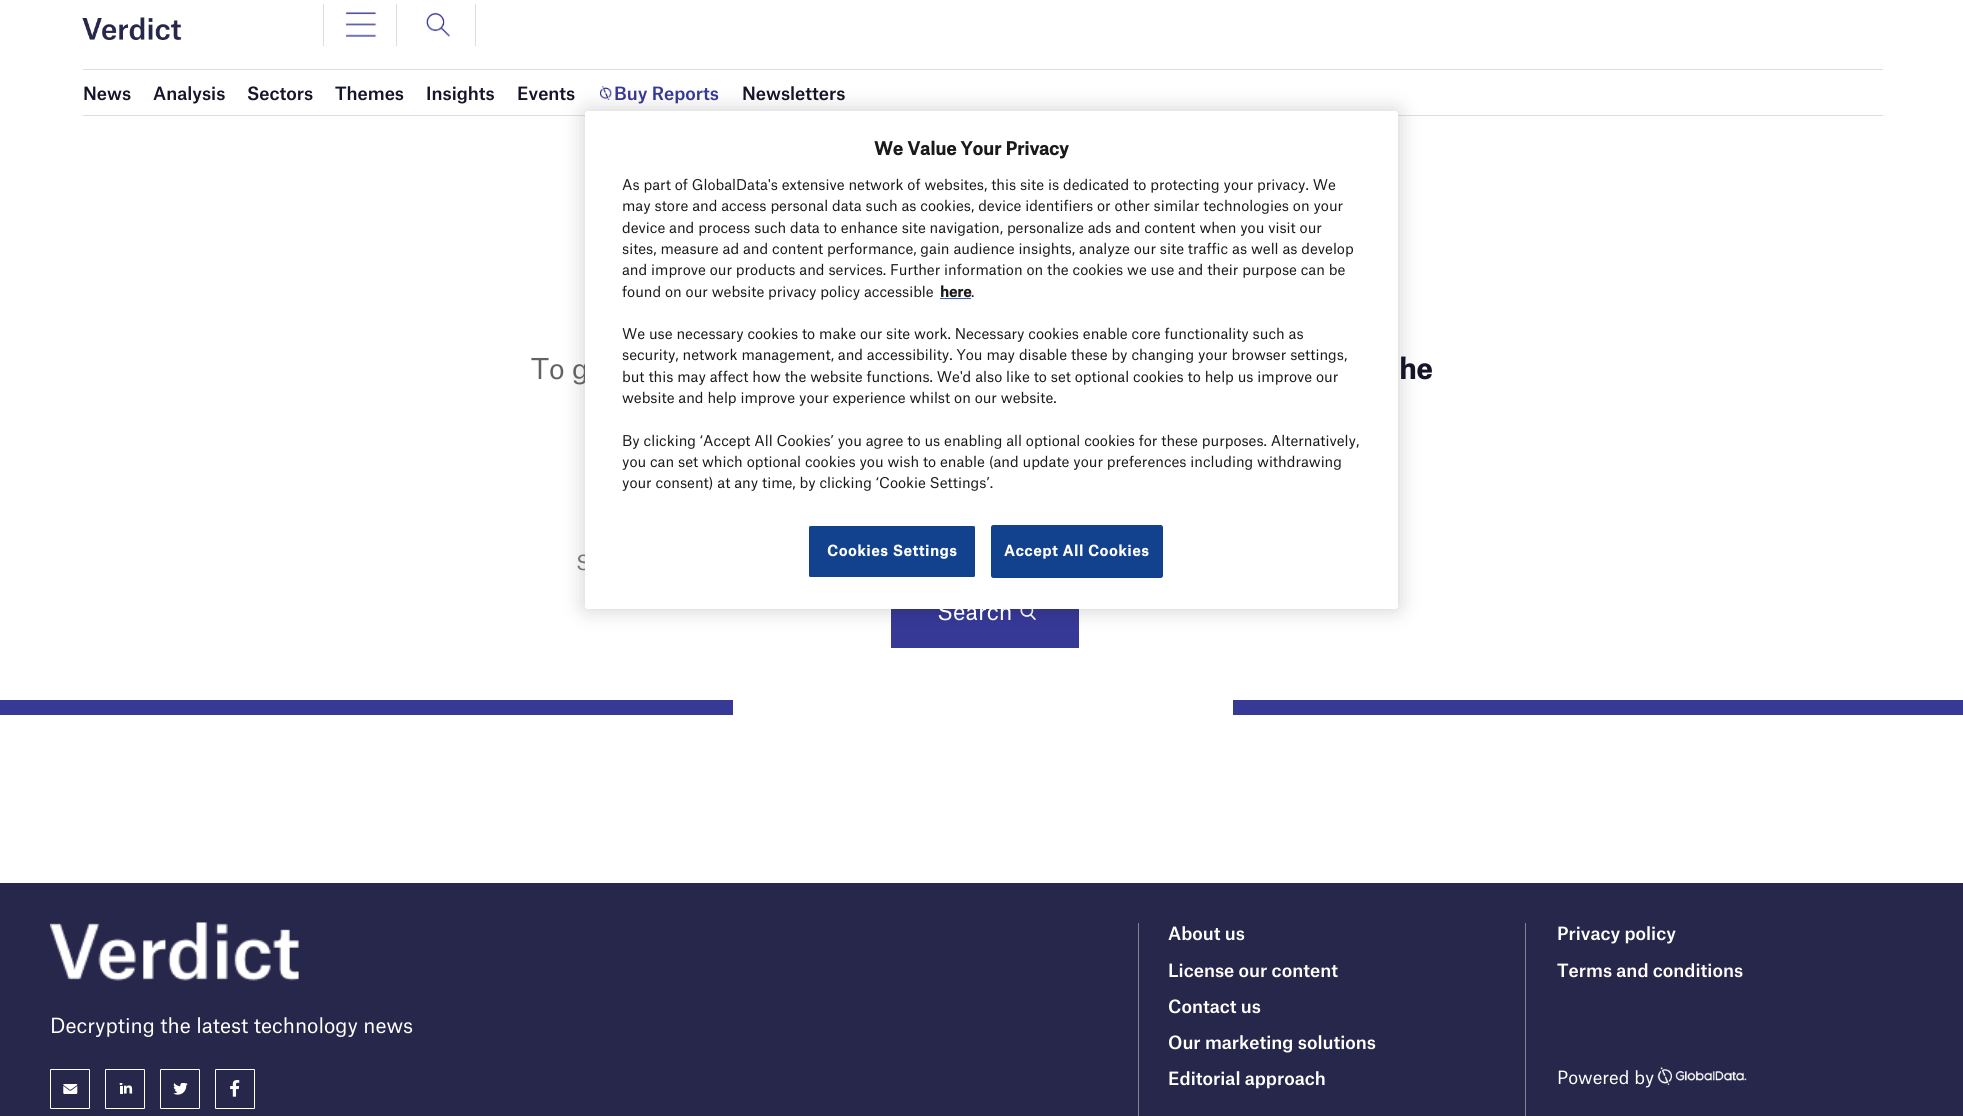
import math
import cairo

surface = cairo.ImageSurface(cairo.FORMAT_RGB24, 1963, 1116)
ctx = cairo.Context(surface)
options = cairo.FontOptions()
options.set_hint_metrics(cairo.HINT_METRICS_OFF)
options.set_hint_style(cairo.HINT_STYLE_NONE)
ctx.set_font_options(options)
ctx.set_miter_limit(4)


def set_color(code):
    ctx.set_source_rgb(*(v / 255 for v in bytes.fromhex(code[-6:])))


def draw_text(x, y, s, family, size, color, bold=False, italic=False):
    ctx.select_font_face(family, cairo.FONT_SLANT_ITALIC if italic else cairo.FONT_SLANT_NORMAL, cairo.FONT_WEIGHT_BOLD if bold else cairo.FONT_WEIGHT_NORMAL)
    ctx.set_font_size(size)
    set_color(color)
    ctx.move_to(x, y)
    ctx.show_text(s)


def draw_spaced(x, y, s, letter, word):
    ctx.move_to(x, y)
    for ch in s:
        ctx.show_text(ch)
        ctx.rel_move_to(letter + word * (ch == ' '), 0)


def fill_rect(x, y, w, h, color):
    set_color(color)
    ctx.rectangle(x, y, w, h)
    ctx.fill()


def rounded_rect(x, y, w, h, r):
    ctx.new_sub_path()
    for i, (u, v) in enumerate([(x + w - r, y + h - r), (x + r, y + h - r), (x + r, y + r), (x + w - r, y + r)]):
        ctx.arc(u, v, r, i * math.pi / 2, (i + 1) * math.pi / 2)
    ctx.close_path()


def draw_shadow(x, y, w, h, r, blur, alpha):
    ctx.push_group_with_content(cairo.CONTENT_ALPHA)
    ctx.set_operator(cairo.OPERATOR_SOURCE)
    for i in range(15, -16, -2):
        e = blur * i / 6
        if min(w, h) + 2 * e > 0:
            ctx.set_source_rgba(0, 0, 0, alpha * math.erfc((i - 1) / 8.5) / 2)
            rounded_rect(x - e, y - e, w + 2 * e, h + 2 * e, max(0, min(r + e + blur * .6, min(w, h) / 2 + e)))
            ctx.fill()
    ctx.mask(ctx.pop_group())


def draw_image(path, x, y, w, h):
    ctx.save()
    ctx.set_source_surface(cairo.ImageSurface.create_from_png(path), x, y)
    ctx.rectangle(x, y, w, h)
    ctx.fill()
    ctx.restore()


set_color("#ffffff")
ctx.paint()
draw_image("assets/img1.png", 82, 17, 100, 23)
draw_image("assets/img2.png", 345, 12, 32, 25)
fill_rect(396, 4, 1, 42, "#dddddd")
fill_rect(323, 4, 1, 42, "#dddddd")
draw_image("assets/img3.png", 426, 12, 25, 25)
fill_rect(475, 4, 1, 42, "#dddddd")
fill_rect(83, 69, 1800, 1, "#dddddd")
fill_rect(83, 115, 1800, 1, "#dddddd")
draw_text(83, 100, "News", "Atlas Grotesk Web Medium", 17.5, "#151529")
draw_text(153, 100, "Analysis", "Atlas Grotesk Web Medium", 17.5, "#151529")
draw_text(247, 100, "Sectors", "Atlas Grotesk Web Medium", 17.5, "#151529")
draw_text(335, 100, "Themes", "Atlas Grotesk Web Medium", 17.5, "#151529")
draw_text(426, 100, "Insights", "Atlas Grotesk Web Medium", 17.5, "#151529")
draw_text(517, 100, "Events", "Atlas Grotesk Web Medium", 17.5, "#151529")
draw_image("assets/img4.png", 600, 86, 12, 14)
draw_text(614, 100, "Buy Reports", "Atlas Grotesk Web Medium", 17.5, "#373997")
draw_text(742, 100, "Newsletters", "Atlas Grotesk Web Medium", 17.5, "#151529")
fill_rect(891, 609, 188, 39, "#373997")
draw_image("assets/img5.png", 1020, 609, 16, 11)
set_color("#000000")
draw_shadow(585, 111, 813, 498, 3, 11, 0.2)
draw_text(531, 379, "To g", "Atlas Grotesk Web", 27.5, "#626262")
draw_text(576, 570, "S", "Atlas Grotesk Web", 20, "#757575")
set_color("#ffffff")
rounded_rect(585, 111, 813, 498, 3)
ctx.fill()
draw_text(874, 155, "We Value Your Privacy", "Atlas Grotesk Web", 17.5, "#1a1a1a", bold=True)
draw_text(622, 190, "As part of GlobalData's extensive network of websites, this site is dedicated to protecting your privacy. We", "Atlas Grotesk Web", 14.23, "#1a1a1a")
draw_text(622, 211, "may store and access personal data such as cookies, device identifiers or other similar technologies on your", "Atlas Grotesk Web", 14.23, "#1a1a1a")
draw_text(622, 233, "device and process such data to enhance site navigation, personalize ads and content when you visit our", "Atlas Grotesk Web", 14.23, "#1a1a1a")
draw_text(622, 254, "sites, measure ad and content performance, gain audience insights, analyze our site traffic as well as develop", "Atlas Grotesk Web", 14.23, "#1a1a1a")
draw_text(622, 275, "and improve our products and services. Further information on the cookies we use and their purpose can be", "Atlas Grotesk Web", 14.23, "#1a1a1a")
draw_text(622, 297, "found on our website privacy policy accessible", "Atlas Grotesk Web", 14.23, "#1a1a1a")
draw_text(940, 297, "here", "Atlas Grotesk Web", 14.23, "#1a1a1a", bold=True)
fill_rect(940, 298, 31, 1, "#3860be")
draw_text(971, 297, ".", "Atlas Grotesk Web", 14.23, "#1a1a1a")
draw_text(622, 339, "We use necessary cookies to make our site work. Necessary cookies enable core functionality such as", "Atlas Grotesk Web", 14.23, "#1a1a1a")
draw_text(622, 360, "security, network management, and accessibility. You may disable these by changing your browser settings,", "Atlas Grotesk Web", 14.23, "#1a1a1a")
draw_text(622, 382, "but this may affect how the website functions. We'd also like to set optional cookies to help us improve our", "Atlas Grotesk Web", 14.23, "#1a1a1a")
draw_text(622, 403, "website and help improve your experience whilst on our website.", "Atlas Grotesk Web", 14.23, "#1a1a1a")
draw_text(622, 446, "By clicking ‘Accept All Cookies’ you agree to us enabling all optional cookies for these purposes. Alternatively,", "Atlas Grotesk Web", 14.23, "#1a1a1a")
draw_text(622, 467, "you can set which optional cookies you wish to enable (and update your preferences including withdrawing", "Atlas Grotesk Web", 14.23, "#1a1a1a")
draw_text(622, 488, "your consent) at any time, by clicking ‘Cookie Settings’.", "Atlas Grotesk Web", 14.23, "#1a1a1a")
set_color("#12418d")
rounded_rect(808.5, 525.5, 167, 52, 2)
ctx.fill_preserve()
set_color("#ffffff")
ctx.set_line_width(1)
ctx.stroke()
ctx.select_font_face("Atlas Grotesk Web", cairo.FONT_SLANT_NORMAL, cairo.FONT_WEIGHT_BOLD)
draw_spaced(827, 556, "Cookies Settings", 0.75, 0)
set_color("#12418d")
rounded_rect(991.5, 525.5, 171, 52, 2)
ctx.fill_preserve()
ctx.stroke()
set_color("#ffffff")
draw_spaced(1004, 556, "Accept All Cookies", 0.75, 0)
draw_text(1399, 379, "he", "Atlas Grotesk Web", 27.5, "#151529", bold=True)
draw_text(937, 620, "Search", "Atlas Grotesk Web", 22.5, "#ffffff")
fill_rect(0, 700, 1963, 15, "#373997")
fill_rect(733, 700, 500, 15, "#ffffff")
fill_rect(0, 883, 1963, 233, "#27274c")
draw_image("assets/img6.png", 50, 922, 249, 59)
draw_text(50, 1033, "Decrypting the latest technology news", "Atlas Grotesk Web", 20, "#ffffff")
rounded_rect(50.5, 1069.5, 39, 39, 0.5)
ctx.stroke()
draw_image("assets/img7.png", 63, 1084, 15, 10)
rounded_rect(105.5, 1069.5, 39, 39, 0.5)
ctx.stroke()
draw_image("assets/img8.png", 119, 1083, 14, 11)
rounded_rect(160.5, 1069.5, 39, 39, 0.5)
ctx.stroke()
draw_image("assets/img9.png", 173, 1083, 15, 12)
rounded_rect(215.5, 1069.5, 39, 39, 0.5)
ctx.stroke()
draw_image("assets/img10.png", 230, 1080, 10, 17)
fill_rect(1138, 923, 1, 193, "#828295")
draw_text(1168, 940, "About us", "Atlas Grotesk Web Medium", 17.5, "#ffffff")
draw_text(1168, 977, "License our content", "Atlas Grotesk Web Medium", 17.5, "#ffffff")
draw_text(1168, 1013, "Contact us", "Atlas Grotesk Web Medium", 17.5, "#ffffff")
draw_text(1168, 1049, "Our marketing solutions", "Atlas Grotesk Web Medium", 17.5, "#ffffff")
draw_text(1168, 1085, "Editorial approach", "Atlas Grotesk Web Medium", 17.5, "#ffffff")
fill_rect(1525, 923, 1, 193, "#828295")
draw_text(1557, 940, "Privacy policy", "Atlas Grotesk Web Medium", 17.5, "#ffffff")
draw_text(1557, 977, "Terms and conditions", "Atlas Grotesk Web Medium", 17.5, "#ffffff")
draw_text(1557, 1084, "Powered by", "Atlas Grotesk Web", 17.5, "#ffffff")
draw_image("assets/img11.png", 1657, 1067, 90, 18)
surface.write_to_png("output.png")
